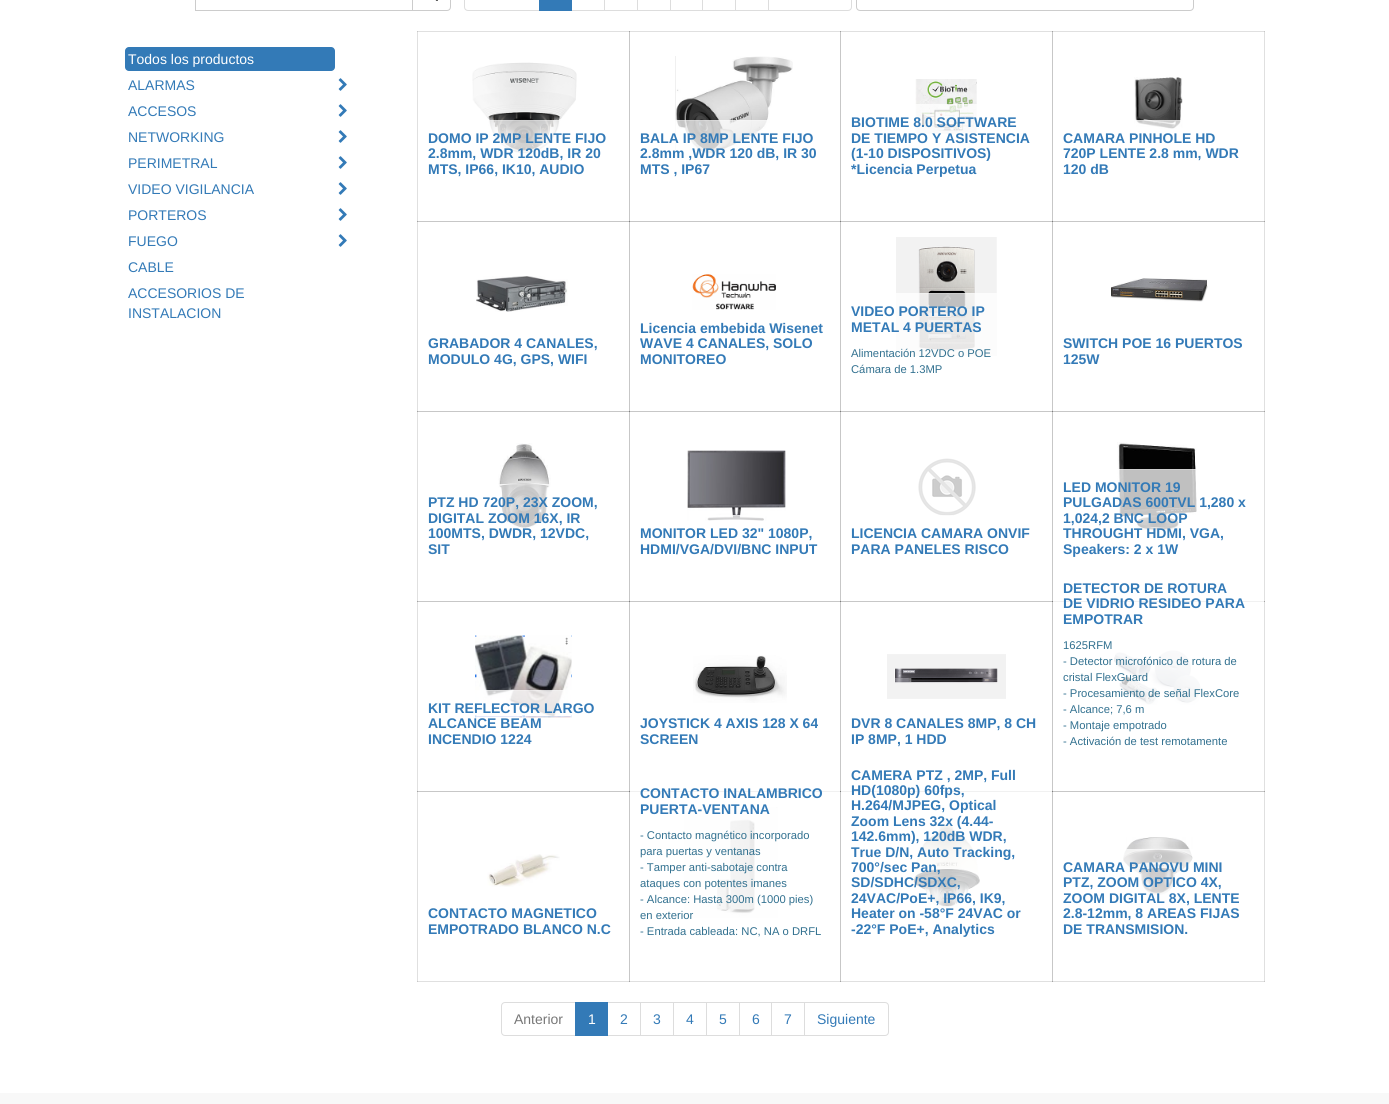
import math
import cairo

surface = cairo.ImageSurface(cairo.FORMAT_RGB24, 1389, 1104)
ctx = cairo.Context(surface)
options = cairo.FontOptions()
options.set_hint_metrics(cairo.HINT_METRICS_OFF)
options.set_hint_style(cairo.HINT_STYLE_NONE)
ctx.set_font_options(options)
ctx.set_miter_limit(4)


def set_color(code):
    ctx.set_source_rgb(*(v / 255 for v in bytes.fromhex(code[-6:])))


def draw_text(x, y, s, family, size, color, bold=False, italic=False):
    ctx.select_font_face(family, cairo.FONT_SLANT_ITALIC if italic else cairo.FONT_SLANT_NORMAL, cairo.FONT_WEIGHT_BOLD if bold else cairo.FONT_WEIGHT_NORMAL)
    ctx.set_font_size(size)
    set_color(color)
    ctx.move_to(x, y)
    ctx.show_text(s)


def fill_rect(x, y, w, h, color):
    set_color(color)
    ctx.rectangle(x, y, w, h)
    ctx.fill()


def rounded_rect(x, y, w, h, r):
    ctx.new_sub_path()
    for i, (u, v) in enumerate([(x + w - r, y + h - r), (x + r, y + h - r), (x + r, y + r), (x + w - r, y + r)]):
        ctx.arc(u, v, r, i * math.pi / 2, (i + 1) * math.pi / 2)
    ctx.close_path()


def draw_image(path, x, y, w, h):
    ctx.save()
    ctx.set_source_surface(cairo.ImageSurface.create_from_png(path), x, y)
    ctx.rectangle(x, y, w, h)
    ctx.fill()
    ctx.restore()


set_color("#ffffff")
ctx.paint()
fill_rect(417, 31, 1, 951, "#e0e0e0")
fill_rect(417, 31, 213, 1, "#e0e0e0")
fill_rect(417, 31, 1, 1, "#c7c7c7")
fill_rect(629, 31, 1, 191, "#c7c7c7")
fill_rect(629, 31, 212, 1, "#e0e0e0")
fill_rect(629, 31, 1, 1, "#a3a3a3")
fill_rect(840, 31, 1, 191, "#c7c7c7")
fill_rect(840, 31, 213, 1, "#e0e0e0")
fill_rect(840, 31, 1, 1, "#a3a3a3")
fill_rect(1052, 31, 1, 191, "#c7c7c7")
fill_rect(1264, 31, 1, 761, "#e0e0e0")
fill_rect(417, 221, 213, 1, "#c7c7c7")
fill_rect(417, 221, 1, 1, "#a3a3a3")
fill_rect(629, 221, 1, 191, "#c7c7c7")
fill_rect(629, 221, 212, 1, "#c7c7c7")
fill_rect(629, 221, 1, 1, "#7e7e7e")
fill_rect(840, 221, 1, 191, "#c7c7c7")
fill_rect(840, 221, 213, 1, "#c7c7c7")
fill_rect(840, 221, 1, 1, "#7e7e7e")
fill_rect(1052, 221, 1, 191, "#c7c7c7")
fill_rect(417, 411, 213, 1, "#c7c7c7")
fill_rect(417, 411, 1, 1, "#a3a3a3")
fill_rect(629, 411, 1, 191, "#c7c7c7")
fill_rect(629, 411, 212, 1, "#c7c7c7")
fill_rect(629, 411, 1, 1, "#7e7e7e")
fill_rect(840, 411, 1, 191, "#c7c7c7")
fill_rect(840, 411, 213, 1, "#c7c7c7")
fill_rect(840, 411, 1, 1, "#7e7e7e")
fill_rect(1052, 411, 1, 191, "#c7c7c7")
fill_rect(417, 601, 213, 1, "#c7c7c7")
fill_rect(417, 601, 1, 1, "#a3a3a3")
fill_rect(629, 601, 1, 191, "#c7c7c7")
fill_rect(629, 601, 212, 1, "#c7c7c7")
fill_rect(629, 601, 1, 1, "#7e7e7e")
fill_rect(840, 601, 1, 191, "#c7c7c7")
fill_rect(840, 601, 213, 1, "#c7c7c7")
fill_rect(840, 601, 1, 1, "#7e7e7e")
fill_rect(1052, 601, 1, 191, "#c7c7c7")
fill_rect(417, 981, 213, 1, "#e0e0e0")
fill_rect(417, 981, 1, 1, "#c7c7c7")
fill_rect(417, 791, 213, 1, "#c7c7c7")
fill_rect(417, 791, 1, 1, "#a3a3a3")
fill_rect(629, 791, 1, 191, "#c7c7c7")
fill_rect(629, 981, 212, 1, "#e0e0e0")
fill_rect(629, 981, 1, 1, "#a3a3a3")
fill_rect(630, 791, 210, 1, "#f1f1f1")
fill_rect(629, 791, 1, 1, "#7e7e7e")
fill_rect(840, 791, 1, 191, "#c7c7c7")
fill_rect(840, 981, 213, 1, "#e0e0e0")
fill_rect(840, 981, 1, 1, "#a3a3a3")
fill_rect(841, 791, 211, 1, "#f1f1f1")
fill_rect(840, 791, 1, 1, "#7e7e7e")
fill_rect(1052, 791, 1, 191, "#c7c7c7")
fill_rect(1052, 981, 213, 1, "#e0e0e0")
fill_rect(1052, 981, 1, 1, "#a3a3a3")
fill_rect(1264, 791, 1, 191, "#e0e0e0")
fill_rect(1264, 981, 1, 1, "#c7c7c7")
ctx.rectangle(195.5, -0.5, 217, 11)
set_color("#cccccc")
ctx.set_line_width(1)
ctx.stroke()
set_color("#ffffff")
ctx.new_path()
ctx.move_to(412.5, -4.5)
ctx.line_to(447, -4.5)
ctx.curve_to(449, -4.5, 450.5, -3, 450.5, -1)
ctx.line_to(450.5, 7)
ctx.curve_to(450.5, 9, 449, 10.5, 447, 10.5)
ctx.line_to(412.5, 10.5)
ctx.close_path()
ctx.fill_preserve()
set_color("#cccccc")
ctx.stroke()
draw_image("assets/img1.png", 435, 0, 3, 1)
ctx.new_path()
ctx.move_to(468, -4.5)
ctx.line_to(539.5, -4.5)
ctx.line_to(539.5, 10.5)
ctx.line_to(468, 10.5)
ctx.curve_to(466, 10.5, 464.5, 9, 464.5, 7)
ctx.line_to(464.5, -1)
ctx.curve_to(464.5, -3, 466, -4.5, 468, -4.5)
ctx.close_path()
set_color("#dddddd")
ctx.stroke()
ctx.rectangle(571.5, -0.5, 33, 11)
ctx.stroke()
fill_rect(539, 0, 33, 11, "#337ab7")
ctx.rectangle(604.5, -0.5, 33, 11)
set_color("#dddddd")
ctx.stroke()
ctx.rectangle(637.5, -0.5, 33, 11)
ctx.stroke()
ctx.rectangle(670.5, -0.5, 32, 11)
ctx.stroke()
ctx.rectangle(702.5, -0.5, 33, 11)
ctx.stroke()
ctx.rectangle(735.5, -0.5, 33, 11)
ctx.stroke()
set_color("#ffffff")
ctx.new_path()
ctx.move_to(768.5, -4.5)
ctx.line_to(848, -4.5)
ctx.curve_to(850, -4.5, 851.5, -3, 851.5, -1)
ctx.line_to(851.5, 7)
ctx.curve_to(851.5, 9, 850, 10.5, 848, 10.5)
ctx.line_to(768.5, 10.5)
ctx.close_path()
ctx.fill_preserve()
set_color("#dddddd")
ctx.stroke()
rounded_rect(856.5, -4.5, 337, 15, 3.5)
set_color("#cccccc")
ctx.stroke()
set_color("#337ab7")
rounded_rect(125, 47, 210, 24, 4)
ctx.fill()
draw_text(128, 64, "Todos los productos", "Liberation Sans", 14, "#ffffff")
draw_text(128, 90, "ALARMAS", "Liberation Sans", 14, "#337ab7")
draw_image("assets/img2.png", 338, 78, 9, 13)
draw_text(128, 116, "ACCESOS", "Liberation Sans", 14, "#337ab7")
draw_image("assets/img2.png", 338, 104, 9, 13)
draw_text(128, 142, "NETWORKING", "Liberation Sans", 14, "#337ab7")
draw_image("assets/img2.png", 338, 130, 9, 13)
draw_text(128, 168, "PERIMETRAL", "Liberation Sans", 14, "#337ab7")
draw_image("assets/img2.png", 338, 156, 9, 13)
draw_text(128, 194, "VIDEO VIGILANCIA", "Liberation Sans", 14, "#337ab7")
draw_image("assets/img2.png", 338, 182, 9, 13)
draw_text(128, 220, "PORTEROS", "Liberation Sans", 14, "#337ab7")
draw_image("assets/img2.png", 338, 208, 9, 13)
draw_text(128, 246, "FUEGO", "Liberation Sans", 14, "#337ab7")
draw_image("assets/img2.png", 338, 234, 9, 13)
draw_text(128, 272, "CABLE", "Liberation Sans", 14, "#337ab7")
draw_text(128, 298, "ACCESORIOS DE", "Liberation Sans", 14, "#337ab7")
draw_text(128, 318, "INSTALACION", "Liberation Sans", 14, "#337ab7")
draw_image("assets/img3.png", 472, 62, 105, 92)
ctx.set_source_rgba(1, 1, 1, 0.75)
ctx.rectangle(489, 120, 71, 34)
ctx.fill()
ctx.set_source_rgba(1, 1, 1, 0.2)
ctx.rectangle(490, 120, 69, 1)
ctx.fill()
draw_text(428, 143, "DOMO IP 2MP LENTE FIJO", "Liberation Sans", 14, "#337ab7", bold=True)
draw_text(428, 158, "2.8mm, WDR 120dB, IR 20", "Liberation Sans", 14, "#337ab7", bold=True)
draw_text(428, 174, "MTS, IP66, IK10, AUDIO", "Liberation Sans", 14, "#337ab7", bold=True)
draw_image("assets/img4.png", 675, 56, 118, 101)
ctx.set_source_rgba(1, 1, 1, 0.75)
ctx.rectangle(675, 120, 92, 37)
ctx.fill()
ctx.set_source_rgba(1, 1, 1, 0.2)
ctx.rectangle(677, 120, 90, 1)
ctx.fill()
draw_text(640, 143, "BALA IP 8MP LENTE FIJO", "Liberation Sans", 14, "#337ab7", bold=True)
draw_text(640, 158, "2.8mm ,WDR 120 dB, IR 30", "Liberation Sans", 14, "#337ab7", bold=True)
draw_text(640, 174, "MTS , IP67", "Liberation Sans", 14, "#337ab7", bold=True)
draw_image("assets/img5.png", 915, 79, 62, 55)
ctx.set_source_rgba(1, 1, 1, 0.75)
ctx.rectangle(915, 104, 62, 30)
ctx.fill()
ctx.set_source_rgba(1, 1, 1, 0.2)
ctx.rectangle(947, 104, 21, 1)
ctx.fill()
draw_text(851, 127, "BIOTIME 8.0 SOFTWARE", "Liberation Sans", 14, "#337ab7", bold=True)
draw_text(851, 143, "DE TIEMPO Y ASISTENCIA", "Liberation Sans", 14, "#337ab7", bold=True)
draw_text(851, 158, "(1-10 DISPOSITIVOS)", "Liberation Sans", 14, "#337ab7", bold=True)
draw_text(851, 174, "*Licencia Perpetua", "Liberation Sans", 14, "#337ab7", bold=True)
fill_rect(1052, 31, 213, 1, "#e0e0e0")
fill_rect(1052, 31, 1, 1, "#a3a3a3")
fill_rect(1264, 31, 1, 1, "#c7c7c7")
draw_image("assets/img6.png", 1134, 77, 49, 52)
ctx.set_source_rgba(1, 1, 1, 0.75)
ctx.rectangle(1135, 120, 46, 9)
ctx.fill()
ctx.set_source_rgba(1, 1, 1, 0.2)
ctx.rectangle(1136, 120, 45, 1)
ctx.fill()
draw_text(1063, 143, "CAMARA PINHOLE HD", "Liberation Sans", 14, "#337ab7", bold=True)
draw_text(1063, 158, "720P LENTE 2.8 mm, WDR", "Liberation Sans", 14, "#337ab7", bold=True)
draw_text(1063, 174, "120 dB", "Liberation Sans", 14, "#337ab7", bold=True)
draw_image("assets/img7.png", 476, 276, 92, 36)
draw_text(428, 348, "GRABADOR 4 CANALES,", "Liberation Sans", 14, "#337ab7", bold=True)
draw_text(428, 364, "MODULO 4G, GPS, WIFI", "Liberation Sans", 14, "#337ab7", bold=True)
draw_image("assets/img8.png", 692, 274, 84, 36)
draw_text(640, 333, "Licencia embebida Wisenet", "Liberation Sans", 14, "#337ab7", bold=True)
draw_text(640, 348, "WAVE 4 CANALES, SOLO", "Liberation Sans", 14, "#337ab7", bold=True)
draw_text(640, 364, "MONITOREO", "Liberation Sans", 14, "#337ab7", bold=True)
draw_image("assets/img9.png", 896, 237, 101, 119)
ctx.set_source_rgba(1, 1, 1, 0.75)
ctx.rectangle(896, 293, 101, 63)
ctx.fill()
ctx.set_source_rgba(1, 1, 1, 0.2)
ctx.rectangle(920, 293, 54, 1)
ctx.fill()
draw_text(851, 316, "VIDEO PORTERO IP", "Liberation Sans", 14, "#337ab7", bold=True)
draw_text(851, 332, "METAL 4 PUERTAS", "Liberation Sans", 14, "#337ab7", bold=True)
draw_text(851, 357, "Alimentación 12VDC o POE", "Liberation Sans", 11.25, "#31708f")
draw_text(851, 373, "Cámara de 1.3MP", "Liberation Sans", 11.25, "#31708f")
fill_rect(1052, 221, 213, 1, "#c7c7c7")
fill_rect(1052, 221, 1, 1, "#7e7e7e")
fill_rect(1264, 221, 1, 1, "#a3a3a3")
draw_image("assets/img10.png", 1111, 278, 97, 24)
draw_text(1063, 348, "SWITCH POE 16 PUERTOS", "Liberation Sans", 14, "#337ab7", bold=True)
draw_text(1063, 364, "125W", "Liberation Sans", 14, "#337ab7", bold=True)
draw_image("assets/img11.png", 498, 443, 53, 85)
ctx.set_source_rgba(1, 1, 1, 0.75)
ctx.rectangle(498, 484, 53, 44)
ctx.fill()
ctx.set_source_rgba(1, 1, 1, 0.2)
ctx.rectangle(500, 484, 42, 1)
ctx.fill()
draw_text(428, 507, "PTZ HD 720P, 23X ZOOM,", "Liberation Sans", 14, "#337ab7", bold=True)
draw_text(428, 523, "DIGITAL ZOOM 16X, IR", "Liberation Sans", 14, "#337ab7", bold=True)
draw_text(428, 538, "100MTS, DWDR, 12VDC,", "Liberation Sans", 14, "#337ab7", bold=True)
draw_text(428, 554, "SIT", "Liberation Sans", 14, "#337ab7", bold=True)
draw_image("assets/img12.png", 687, 450, 99, 71)
ctx.set_source_rgba(1, 1, 1, 0.75)
ctx.rectangle(706, 515, 59, 6)
ctx.fill()
ctx.set_source_rgba(1, 1, 1, 0.2)
ctx.rectangle(733, 515, 7, 1)
ctx.fill()
draw_text(640, 538, "MONITOR LED 32\" 1080P,", "Liberation Sans", 14, "#337ab7", bold=True)
draw_text(640, 554, "HDMI/VGA/DVI/BNC INPUT", "Liberation Sans", 14, "#337ab7", bold=True)
draw_image("assets/img13.png", 918, 458, 58, 58)
ctx.set_source_rgba(1, 1, 1, 0.75)
ctx.rectangle(941, 515, 12, 1)
ctx.fill()
draw_text(851, 538, "LICENCIA CAMARA ONVIF", "Liberation Sans", 14, "#337ab7", bold=True)
draw_text(851, 554, "PARA PANELES RISCO", "Liberation Sans", 14, "#337ab7", bold=True)
fill_rect(1052, 411, 213, 1, "#c7c7c7")
fill_rect(1052, 411, 1, 1, "#7e7e7e")
fill_rect(1264, 411, 1, 1, "#a3a3a3")
draw_image("assets/img14.png", 1117, 442, 80, 89)
ctx.set_source_rgba(1, 1, 1, 0.75)
ctx.rectangle(1117, 469, 80, 62)
ctx.fill()
ctx.set_source_rgba(1, 1, 1, 0.2)
ctx.rectangle(1119, 469, 77, 1)
ctx.fill()
draw_text(1063, 492, "LED MONITOR 19", "Liberation Sans", 14, "#337ab7", bold=True)
draw_text(1063, 507, "PULGADAS 600TVL 1,280 x", "Liberation Sans", 14, "#337ab7", bold=True)
draw_text(1063, 523, "1,024,2 BNC LOOP", "Liberation Sans", 14, "#337ab7", bold=True)
draw_text(1063, 538, "THROUGHT HDMI, VGA,", "Liberation Sans", 14, "#337ab7", bold=True)
draw_text(1063, 554, "Speakers: 2 x 1W", "Liberation Sans", 14, "#337ab7", bold=True)
draw_image("assets/img15.png", 475, 635, 97, 83)
ctx.set_source_rgba(1, 1, 1, 0.75)
ctx.rectangle(475, 690, 97, 28)
ctx.fill()
ctx.set_source_rgba(1, 1, 1, 0.2)
ctx.rectangle(486, 690, 77, 1)
ctx.fill()
draw_text(428, 713, "KIT REFLECTOR LARGO", "Liberation Sans", 14, "#337ab7", bold=True)
draw_text(428, 728, "ALCANCE BEAM", "Liberation Sans", 14, "#337ab7", bold=True)
draw_text(428, 744, "INCENDIO 1224", "Liberation Sans", 14, "#337ab7", bold=True)
draw_image("assets/img16.png", 693, 655, 94, 48)
draw_text(640, 728, "JOYSTICK 4 AXIS 128 X 64", "Liberation Sans", 14, "#337ab7", bold=True)
draw_text(640, 744, "SCREEN", "Liberation Sans", 14, "#337ab7", bold=True)
draw_image("assets/img17.png", 887, 654, 119, 45)
draw_text(851, 728, "DVR 8 CANALES 8MP, 8 CH", "Liberation Sans", 14, "#337ab7", bold=True)
draw_text(851, 744, "IP 8MP, 1 HDD", "Liberation Sans", 14, "#337ab7", bold=True)
fill_rect(1052, 601, 213, 1, "#c7c7c7")
fill_rect(1052, 601, 1, 1, "#7e7e7e")
fill_rect(1264, 601, 1, 1, "#a3a3a3")
draw_image("assets/img18.png", 1114, 650, 87, 55)
ctx.set_source_rgba(1, 1, 1, 0.75)
ctx.rectangle(1053, 601, 211, 104)
ctx.fill()
draw_text(1063, 593, "DETECTOR DE ROTURA", "Liberation Sans", 14, "#337ab7", bold=True)
draw_text(1063, 608, "DE VIDRIO RESIDEO PARA", "Liberation Sans", 14, "#337ab7", bold=True)
draw_text(1063, 624, "EMPOTRAR", "Liberation Sans", 14, "#337ab7", bold=True)
draw_text(1063, 649, "1625RFM", "Liberation Sans", 11.25, "#31708f")
draw_text(1063, 665, "- Detector microfónico de rotura de", "Liberation Sans", 11.25, "#31708f")
draw_text(1063, 681, "cristal FlexGuard", "Liberation Sans", 11.25, "#31708f")
draw_text(1063, 697, "- Procesamiento de señal FlexCore", "Liberation Sans", 11.25, "#31708f")
draw_text(1063, 713, "- Alcance; 7,6 m", "Liberation Sans", 11.25, "#31708f")
draw_text(1063, 729, "- Montaje empotrado", "Liberation Sans", 11.25, "#31708f")
draw_text(1063, 745, "- Activación de test remotamente", "Liberation Sans", 11.25, "#31708f")
draw_image("assets/img19.png", 487, 854, 73, 33)
draw_text(428, 918, "CONTACTO MAGNETICO", "Liberation Sans", 14, "#337ab7", bold=True)
draw_text(428, 934, "EMPOTRADO BLANCO N.C", "Liberation Sans", 14, "#337ab7", bold=True)
draw_text(640, 798, "CONTACTO INALAMBRICO", "Liberation Sans", 14, "#337ab7", bold=True)
draw_image("assets/img20.png", 684, 807, 94, 111)
draw_text(640, 814, "PUERTA-VENTANA", "Liberation Sans", 14, "#337ab7", bold=True)
draw_text(640, 839, "- Contacto magnético incorporado", "Liberation Sans", 11.25, "#31708f")
draw_text(640, 855, "para puertas y ventanas", "Liberation Sans", 11.25, "#31708f")
draw_text(640, 871, "- Tamper anti-sabotaje contra", "Liberation Sans", 11.25, "#31708f")
draw_text(640, 887, "ataques con potentes imanes", "Liberation Sans", 11.25, "#31708f")
draw_text(640, 903, "- Alcance: Hasta 300m (1000 pies)", "Liberation Sans", 11.25, "#31708f")
draw_text(640, 919, "en exterior", "Liberation Sans", 11.25, "#31708f")
draw_text(640, 935, "- Entrada cableada: NC, NA o DRFL", "Liberation Sans", 11.25, "#31708f")
draw_text(851, 780, "CAMERA PTZ , 2MP, Full", "Liberation Sans", 14, "#337ab7", bold=True)
draw_text(851, 795, "HD(1080p) 60fps,", "Liberation Sans", 14, "#337ab7", bold=True)
draw_text(851, 810, "H.264/MJPEG, Optical", "Liberation Sans", 14, "#337ab7", bold=True)
draw_image("assets/img21.png", 913, 824, 67, 85)
draw_text(851, 826, "Zoom Lens 32x (4.44-", "Liberation Sans", 14, "#337ab7", bold=True)
draw_text(851, 841, "142.6mm), 120dB WDR,", "Liberation Sans", 14, "#337ab7", bold=True)
draw_text(851, 857, "True D/N, Auto Tracking,", "Liberation Sans", 14, "#337ab7", bold=True)
draw_text(851, 872, "700°/sec Pan,", "Liberation Sans", 14, "#337ab7", bold=True)
draw_text(851, 887, "SD/SDHC/SDXC,", "Liberation Sans", 14, "#337ab7", bold=True)
draw_text(851, 903, "24VAC/PoE+, IP66, IK9,", "Liberation Sans", 14, "#337ab7", bold=True)
draw_text(851, 918, "Heater on -58°F 24VAC or", "Liberation Sans", 14, "#337ab7", bold=True)
draw_text(851, 934, "-22°F PoE+, Analytics", "Liberation Sans", 14, "#337ab7", bold=True)
fill_rect(1052, 791, 213, 1, "#c7c7c7")
fill_rect(1052, 791, 1, 1, "#7e7e7e")
fill_rect(1264, 791, 1, 1, "#a3a3a3")
draw_image("assets/img22.png", 1123, 837, 70, 58)
ctx.set_source_rgba(1, 1, 1, 0.75)
ctx.rectangle(1123, 849, 70, 46)
ctx.fill()
ctx.set_source_rgba(1, 1, 1, 0.2)
ctx.rectangle(1156, 849, 33, 1)
ctx.fill()
draw_text(1063, 872, "CAMARA PANOVU MINI", "Liberation Sans", 14, "#337ab7", bold=True)
draw_text(1063, 887, "PTZ, ZOOM OPTICO 4X,", "Liberation Sans", 14, "#337ab7", bold=True)
draw_text(1063, 903, "ZOOM DIGITAL 8X, LENTE", "Liberation Sans", 14, "#337ab7", bold=True)
draw_text(1063, 918, "2.8-12mm, 8 AREAS FIJAS", "Liberation Sans", 14, "#337ab7", bold=True)
draw_text(1063, 934, "DE TRANSMISION.", "Liberation Sans", 14, "#337ab7", bold=True)
ctx.new_path()
ctx.move_to(505, 1002.5)
ctx.line_to(575.5, 1002.5)
ctx.line_to(575.5, 1035.5)
ctx.line_to(505, 1035.5)
ctx.curve_to(503, 1035.5, 501.5, 1034, 501.5, 1032)
ctx.line_to(501.5, 1006)
ctx.curve_to(501.5, 1004, 503, 1002.5, 505, 1002.5)
ctx.close_path()
set_color("#dddddd")
ctx.stroke()
draw_text(514, 1024, "Anterior", "Liberation Sans", 14, "#777777")
ctx.rectangle(607.5, 1002.5, 33, 33)
set_color("#dddddd")
ctx.stroke()
fill_rect(575, 1002, 33, 34, "#337ab7")
draw_text(588, 1024, "1", "Liberation Sans", 14, "#ffffff")
draw_text(620, 1024, "2", "Liberation Sans", 14, "#337ab7")
ctx.rectangle(640.5, 1002.5, 33, 33)
set_color("#dddddd")
ctx.stroke()
draw_text(653, 1024, "3", "Liberation Sans", 14, "#337ab7")
ctx.rectangle(673.5, 1002.5, 33, 33)
set_color("#dddddd")
ctx.stroke()
draw_text(686, 1024, "4", "Liberation Sans", 14, "#337ab7")
ctx.rectangle(706.5, 1002.5, 33, 33)
set_color("#dddddd")
ctx.stroke()
draw_text(719, 1024, "5", "Liberation Sans", 14, "#337ab7")
ctx.rectangle(739.5, 1002.5, 32, 33)
set_color("#dddddd")
ctx.stroke()
draw_text(752, 1024, "6", "Liberation Sans", 14, "#337ab7")
ctx.rectangle(771.5, 1002.5, 33, 33)
set_color("#dddddd")
ctx.stroke()
draw_text(784, 1024, "7", "Liberation Sans", 14, "#337ab7")
set_color("#ffffff")
ctx.new_path()
ctx.move_to(804.5, 1002.5)
ctx.line_to(885, 1002.5)
ctx.curve_to(887, 1002.5, 888.5, 1004, 888.5, 1006)
ctx.line_to(888.5, 1032)
ctx.curve_to(888.5, 1034, 887, 1035.5, 885, 1035.5)
ctx.line_to(804.5, 1035.5)
ctx.close_path()
ctx.fill_preserve()
set_color("#dddddd")
ctx.stroke()
draw_text(817, 1024, "Siguiente", "Liberation Sans", 14, "#337ab7")
fill_rect(0, 1093, 1389, 11, "#f8f8f8")
surface.write_to_png("output.png")
